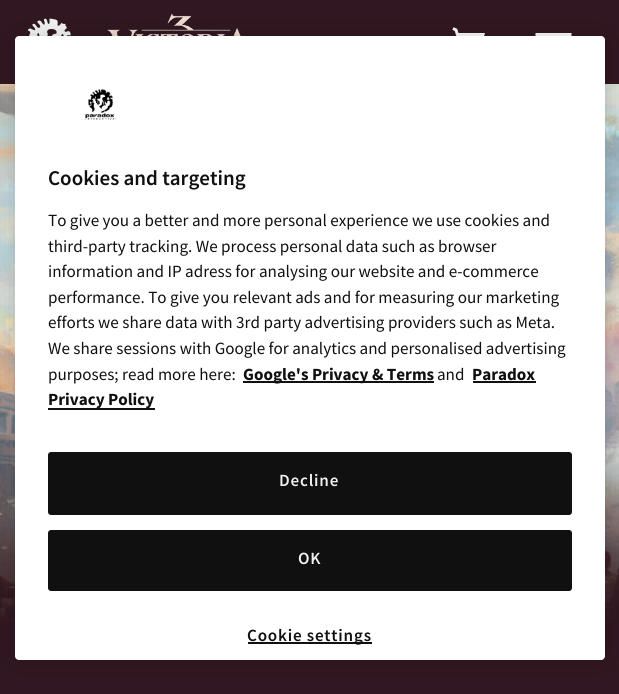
import math
import cairo

surface = cairo.ImageSurface(cairo.FORMAT_RGB24, 619, 694)
ctx = cairo.Context(surface)
options = cairo.FontOptions()
options.set_hint_metrics(cairo.HINT_METRICS_OFF)
options.set_hint_style(cairo.HINT_STYLE_NONE)
ctx.set_font_options(options)
ctx.set_miter_limit(4)


def set_color(code):
    ctx.set_source_rgb(*(v / 255 for v in bytes.fromhex(code[-6:])))


def draw_text(x, y, s, family, size, color, bold=False, italic=False):
    ctx.select_font_face(family, cairo.FONT_SLANT_ITALIC if italic else cairo.FONT_SLANT_NORMAL, cairo.FONT_WEIGHT_BOLD if bold else cairo.FONT_WEIGHT_NORMAL)
    ctx.set_font_size(size)
    set_color(color)
    ctx.move_to(x, y)
    ctx.show_text(s)


def draw_spaced(x, y, s, letter, word):
    ctx.move_to(x, y)
    for ch in s:
        ctx.show_text(ch)
        ctx.rel_move_to(letter + word * (ch == ' '), 0)


def fill_rect(x, y, w, h, color):
    set_color(color)
    ctx.rectangle(x, y, w, h)
    ctx.fill()


def rounded_rect(x, y, w, h, r):
    ctx.new_sub_path()
    for i, (u, v) in enumerate([(x + w - r, y + h - r), (x + r, y + h - r), (x + r, y + r), (x + w - r, y + r)]):
        ctx.arc(u, v, r, i * math.pi / 2, (i + 1) * math.pi / 2)
    ctx.close_path()


def draw_shadow(x, y, w, h, r, blur, alpha):
    ctx.push_group_with_content(cairo.CONTENT_ALPHA)
    ctx.set_operator(cairo.OPERATOR_SOURCE)
    for i in range(15, -16, -2):
        e = blur * i / 6
        if min(w, h) + 2 * e > 0:
            ctx.set_source_rgba(0, 0, 0, alpha * math.erfc((i - 1) / 8.5) / 2)
            rounded_rect(x - e, y - e, w + 2 * e, h + 2 * e, max(0, min(r + e + blur * .6, min(w, h) / 2 + e)))
            ctx.fill()
    ctx.mask(ctx.pop_group())


def draw_image(path, x, y, w, h):
    ctx.save()
    ctx.set_source_surface(cairo.ImageSurface.create_from_png(path), x, y)
    ctx.rectangle(x, y, w, h)
    ctx.fill()
    ctx.restore()


set_color("#311721")
ctx.paint()
draw_image("assets/img1.png", 28, 18, 43, 18)
draw_image("assets/img2.png", 107, 13, 134, 23)
draw_image("assets/img3.png", 452, 27, 33, 9)
set_color("#ffffff")
ctx.set_fill_rule(cairo.FILL_RULE_EVEN_ODD)
ctx.new_path()
ctx.move_to(535.5, 33)
ctx.line_to(571.5, 33)
ctx.line_to(571.5, 36)
ctx.line_to(535.5, 36)
ctx.close_path()
ctx.move_to(535.5, 48)
ctx.line_to(571.5, 48)
ctx.line_to(571.5, 51)
ctx.line_to(535.5, 51)
ctx.close_path()
ctx.fill()
draw_image("assets/img4.png", 0, 84, 619, 540)
set_color("#000000")
draw_shadow(15, 36, 590, 624, 4, 13.5, 0.2)
set_color("#ffffff")
rounded_rect(15, 36, 590, 624, 4)
ctx.fill()
draw_image("assets/img5.png", 85, 89, 31, 31)
draw_text(48, 185, "Cookies and targeting", "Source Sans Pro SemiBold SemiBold", 21, "#101010")
draw_text(48, 226, "To give you a better and more personal experience we use cookies and", "Source Sans Pro", 17.1, "#101010")
draw_text(48, 252, "third-party tracking. We process personal data such as browser", "Source Sans Pro", 17.1, "#101010")
draw_text(48, 277, "information and IP adress for analysing our website and e-commerce", "Source Sans Pro", 17.1, "#101010")
draw_text(48, 303, "performance. To give you relevant ads and for measuring our marketing", "Source Sans Pro", 17.1, "#101010")
draw_text(48, 328, "efforts we share data with 3rd party advertising providers such as Meta.", "Source Sans Pro", 17.1, "#101010")
draw_text(48, 354, "We share sessions with Google for analytics and personalised advertising", "Source Sans Pro", 17.1, "#101010")
draw_text(48, 380, "purposes; read more here:", "Source Sans Pro", 17.1, "#101010")
fill_rect(243, 381, 191, 2, "#101010")
draw_text(243, 380, "Google's Privacy & Terms", "Source Sans Pro", 17.1, "#101010", bold=True)
draw_text(437, 380, "and", "Source Sans Pro", 17.1, "#101010")
draw_text(472, 380, "Paradox", "Source Sans Pro", 17.1, "#101010", bold=True)
fill_rect(473, 381, 63, 2, "#101010")
fill_rect(48, 408, 107, 2, "#101010")
draw_text(48, 405, "Privacy Policy", "Source Sans Pro", 17.1, "#101010", bold=True)
rounded_rect(49, 453, 522, 61, 2)
ctx.fill_preserve()
ctx.stroke()
ctx.select_font_face("Source Sans Pro SemiBold SemiBold")
set_color("#f0f0f0")
draw_spaced(279, 486, "Decline", 0.8, 0)
set_color("#101010")
rounded_rect(49, 531, 522, 59, 2)
ctx.fill_preserve()
ctx.stroke()
set_color("#f0f0f0")
draw_spaced(298, 564, "OK", 0.8, 0)
fill_rect(248, 642, 124, 2, "#101010")
draw_spaced(247, 641, "Cookie settings", 0.8, 0)
surface.write_to_png("output.png")
